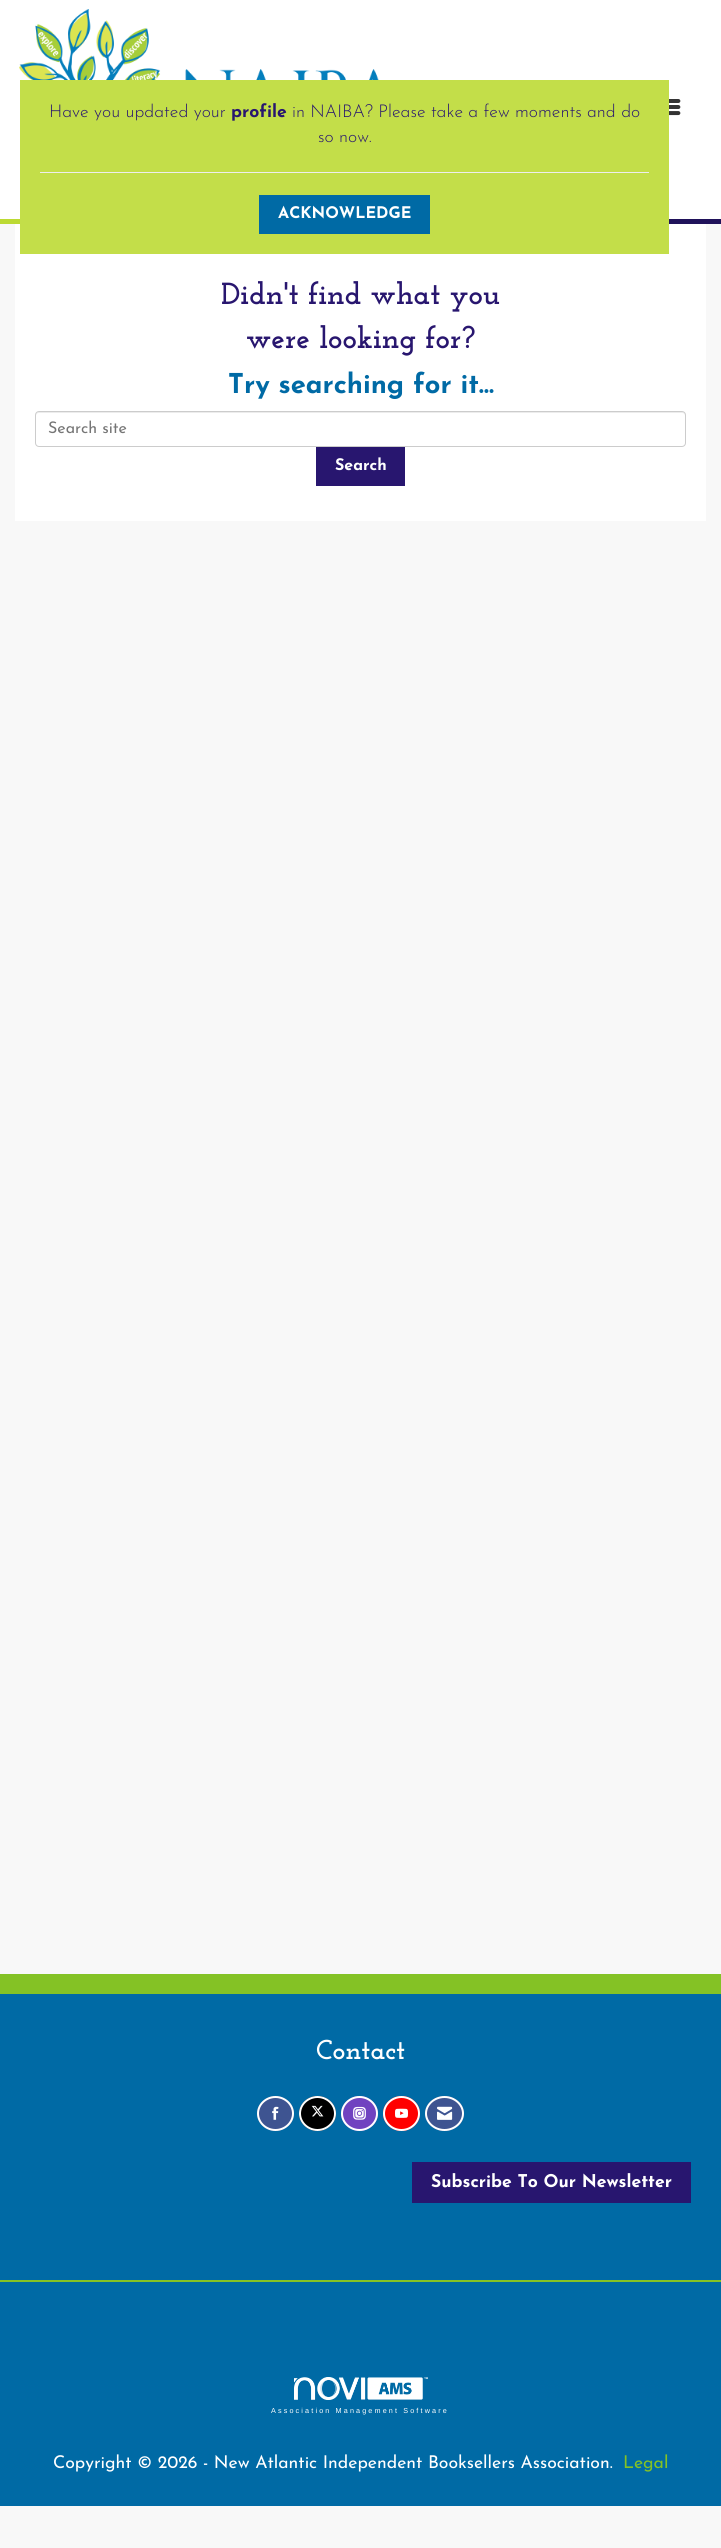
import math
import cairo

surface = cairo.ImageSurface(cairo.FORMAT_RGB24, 721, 2548)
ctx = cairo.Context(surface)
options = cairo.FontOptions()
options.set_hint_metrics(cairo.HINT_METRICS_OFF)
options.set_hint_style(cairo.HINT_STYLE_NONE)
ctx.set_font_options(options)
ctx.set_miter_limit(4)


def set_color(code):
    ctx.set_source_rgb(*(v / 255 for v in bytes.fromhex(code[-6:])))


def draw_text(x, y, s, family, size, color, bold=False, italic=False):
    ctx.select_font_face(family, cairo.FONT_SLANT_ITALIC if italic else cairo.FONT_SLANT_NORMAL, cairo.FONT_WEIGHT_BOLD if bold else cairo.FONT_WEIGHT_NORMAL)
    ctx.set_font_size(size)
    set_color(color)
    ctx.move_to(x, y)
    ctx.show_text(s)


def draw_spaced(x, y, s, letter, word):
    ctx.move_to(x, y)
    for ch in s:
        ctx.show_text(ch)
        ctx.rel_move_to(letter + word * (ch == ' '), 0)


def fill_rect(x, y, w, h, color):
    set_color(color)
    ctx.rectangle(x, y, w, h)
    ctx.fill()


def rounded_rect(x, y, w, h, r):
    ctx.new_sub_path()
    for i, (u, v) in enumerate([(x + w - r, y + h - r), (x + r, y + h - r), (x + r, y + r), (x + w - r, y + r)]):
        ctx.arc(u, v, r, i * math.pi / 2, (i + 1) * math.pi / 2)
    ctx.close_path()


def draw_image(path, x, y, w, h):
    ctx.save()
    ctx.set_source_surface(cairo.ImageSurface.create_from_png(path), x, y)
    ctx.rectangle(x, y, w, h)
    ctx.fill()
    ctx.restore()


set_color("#f8f8f8")
ctx.paint()
fill_rect(0, 0, 721, 219, "#ffffff")
draw_image("assets/img1.png", 19, 9, 360, 71)
draw_image("assets/img2.png", 669, 99, 12, 17)
fill_rect(0, 219, 20, 5, "#bcda33")
fill_rect(669, 219, 52, 5, "#20125a")
fill_rect(15, 224, 691, 297, "#ffffff")
fill_rect(20, 80, 649, 174, "#c3de49")
draw_text(49, 117, "Have you updated your", "Josefin Sans Light", 17.6, "#28166f")
draw_text(231, 117, "profile", "Josefin Sans", 17.6, "#28166f", bold=True)
draw_text(292, 117, "in NAIBA? Please take a few moments and do", "Josefin Sans Light", 17.6, "#28166f")
draw_text(318, 142, "so now.", "Josefin Sans Light", 17.6, "#28166f")
fill_rect(40, 172, 609, 1, "#eeeeee")
fill_rect(259, 195, 171, 39, "#006aa5")
draw_text(278, 218, "ACKNOWLEDGE", "Josefin Sans", 16, "#ffffff", bold=True)
draw_text(221, 304, "Didn't find what you", "Josefin Slab", 30.5, "#28166f", bold=True)
draw_text(246, 348, "were looking for?", "Josefin Slab", 30.5, "#28166f", bold=True)
draw_text(228, 393, "Try searching for it…", "Josefin Sans", 27.25, "#006aa5", bold=True)
set_color("#ececec")
ctx.new_path()
ctx.move_to(39, 413)
ctx.line_to(682, 413)
ctx.curve_to(684, 413, 685, 414, 685, 416)
ctx.line_to(685, 415)
ctx.curve_to(685, 413, 684, 412, 682, 412)
ctx.line_to(39, 412)
ctx.curve_to(37, 412, 36, 413, 36, 415)
ctx.line_to(36, 416)
ctx.curve_to(36, 414, 37, 413, 39, 413)
ctx.close_path()
ctx.fill()
rounded_rect(35.5, 411.5, 650, 35, 3.5)
set_color("#cccccc")
ctx.set_line_width(1)
ctx.stroke()
draw_text(48, 433, "Search site", "Josefin Sans", 16, "#757575")
fill_rect(316, 447, 89, 39, "#28166f")
draw_text(335, 470, "Search", "Josefin Sans", 16, "#ffffff", bold=True)
fill_rect(0, 1974, 721, 20, "#84c225")
fill_rect(0, 1994, 721, 286, "#006aa5")
draw_text(316, 2059, "Contact", "Josefin Slab", 27.25, "#ffffff", bold=True)
set_color("#3e5491")
ctx.new_path()
ctx.move_to(275.5, 2096)
ctx.curve_to(285.5, 2096, 294, 2104, 294, 2113.5)
ctx.curve_to(294, 2123, 285.5, 2131, 275.5, 2131)
ctx.curve_to(265.5, 2131, 257, 2123, 257, 2113.5)
ctx.curve_to(257, 2104, 265.5, 2096, 275.5, 2096)
ctx.close_path()
ctx.fill()
ctx.new_path()
ctx.move_to(275.5, 2097)
ctx.curve_to(285, 2097, 293, 2104.5, 293, 2113.5)
ctx.curve_to(293, 2122.5, 285, 2130, 275.5, 2130)
ctx.curve_to(266, 2130, 258, 2122.5, 258, 2113.5)
ctx.curve_to(258, 2104.5, 266, 2097, 275.5, 2097)
ctx.close_path()
set_color("#ffffff")
ctx.set_line_width(2)
ctx.stroke()
draw_image("assets/img3.png", 272, 2106, 7, 14)
set_color("#000000")
ctx.new_path()
ctx.move_to(317.5, 2096)
ctx.curve_to(327.5, 2096, 336, 2104, 336, 2113.5)
ctx.curve_to(336, 2123, 327.5, 2131, 317.5, 2131)
ctx.curve_to(307.5, 2131, 299, 2123, 299, 2113.5)
ctx.curve_to(299, 2104, 307.5, 2096, 317.5, 2096)
ctx.close_path()
ctx.fill()
ctx.new_path()
ctx.move_to(317.5, 2097)
ctx.curve_to(327, 2097, 335, 2104.5, 335, 2113.5)
ctx.curve_to(335, 2122.5, 327, 2130, 317.5, 2130)
ctx.curve_to(308, 2130, 300, 2122.5, 300, 2113.5)
ctx.curve_to(300, 2104.5, 308, 2097, 317.5, 2097)
ctx.close_path()
set_color("#ffffff")
ctx.stroke()
draw_image("assets/img4.png", 311, 2105, 13, 12)
set_color("#7042c0")
ctx.new_path()
ctx.move_to(359.5, 2096)
ctx.curve_to(369.5, 2096, 378, 2104, 378, 2113.5)
ctx.curve_to(378, 2123, 369.5, 2131, 359.5, 2131)
ctx.curve_to(349.5, 2131, 341, 2123, 341, 2113.5)
ctx.curve_to(341, 2104, 349.5, 2096, 359.5, 2096)
ctx.close_path()
ctx.fill()
ctx.new_path()
ctx.move_to(359.5, 2097)
ctx.curve_to(369, 2097, 377, 2104.5, 377, 2113.5)
ctx.curve_to(377, 2122.5, 369, 2130, 359.5, 2130)
ctx.curve_to(350, 2130, 342, 2122.5, 342, 2113.5)
ctx.curve_to(342, 2104.5, 350, 2097, 359.5, 2097)
ctx.close_path()
set_color("#ffffff")
ctx.stroke()
draw_image("assets/img5.png", 353, 2106, 13, 14)
set_color("#ff0000")
ctx.new_path()
ctx.move_to(401.5, 2096)
ctx.curve_to(411.5, 2096, 420, 2104, 420, 2113.5)
ctx.curve_to(420, 2123, 411.5, 2131, 401.5, 2131)
ctx.curve_to(391.5, 2131, 383, 2123, 383, 2113.5)
ctx.curve_to(383, 2104, 391.5, 2096, 401.5, 2096)
ctx.close_path()
ctx.fill()
ctx.new_path()
ctx.move_to(401.5, 2097)
ctx.curve_to(411, 2097, 419, 2104.5, 419, 2113.5)
ctx.curve_to(419, 2122.5, 411, 2130, 401.5, 2130)
ctx.curve_to(392, 2130, 384, 2122.5, 384, 2113.5)
ctx.curve_to(384, 2104.5, 392, 2097, 401.5, 2097)
ctx.close_path()
set_color("#ffffff")
ctx.stroke()
draw_image("assets/img6.png", 395, 2108, 13, 10)
set_color("#3e5491")
ctx.new_path()
ctx.move_to(444.5, 2096)
ctx.curve_to(455.5, 2096, 464, 2104, 464, 2113.5)
ctx.curve_to(464, 2123, 455.5, 2131, 444.5, 2131)
ctx.curve_to(433.5, 2131, 425, 2123, 425, 2113.5)
ctx.curve_to(425, 2104, 433.5, 2096, 444.5, 2096)
ctx.close_path()
ctx.fill()
ctx.new_path()
ctx.move_to(444.5, 2097)
ctx.curve_to(454.5, 2097, 463, 2104.5, 463, 2113.5)
ctx.curve_to(463, 2122.5, 454.5, 2130, 444.5, 2130)
ctx.curve_to(434.5, 2130, 426, 2122.5, 426, 2113.5)
ctx.curve_to(426, 2104.5, 434.5, 2097, 444.5, 2097)
ctx.close_path()
set_color("#ffffff")
ctx.stroke()
draw_image("assets/img7.png", 437, 2106, 16, 14)
fill_rect(412, 2162, 279, 41, "#28166f")
draw_text(431, 2187, "Subscribe To Our Newsletter", "Josefin Sans", 17.6, "#ffffff", bold=True)
fill_rect(0, 2282, 721, 224, "#006aa5")
fill_rect(0, 2280, 721, 2, "#84c225")
draw_image("assets/img8.png", 294, 2377, 134, 23)
ctx.select_font_face("Liberation Sans")
ctx.set_font_size(7.2)
set_color("#ffffff")
draw_spaced(271, 2413, "Association Management Software", 2.15, 0)
draw_text(53, 2468, "Copyright © 2026 - New Atlantic Independent Booksellers Association.", "Josefin Sans", 17.6, "#ffffff")
draw_text(623, 2468, "Legal", "Josefin Sans", 17.6, "#84c225")
surface.write_to_png("output.png")
